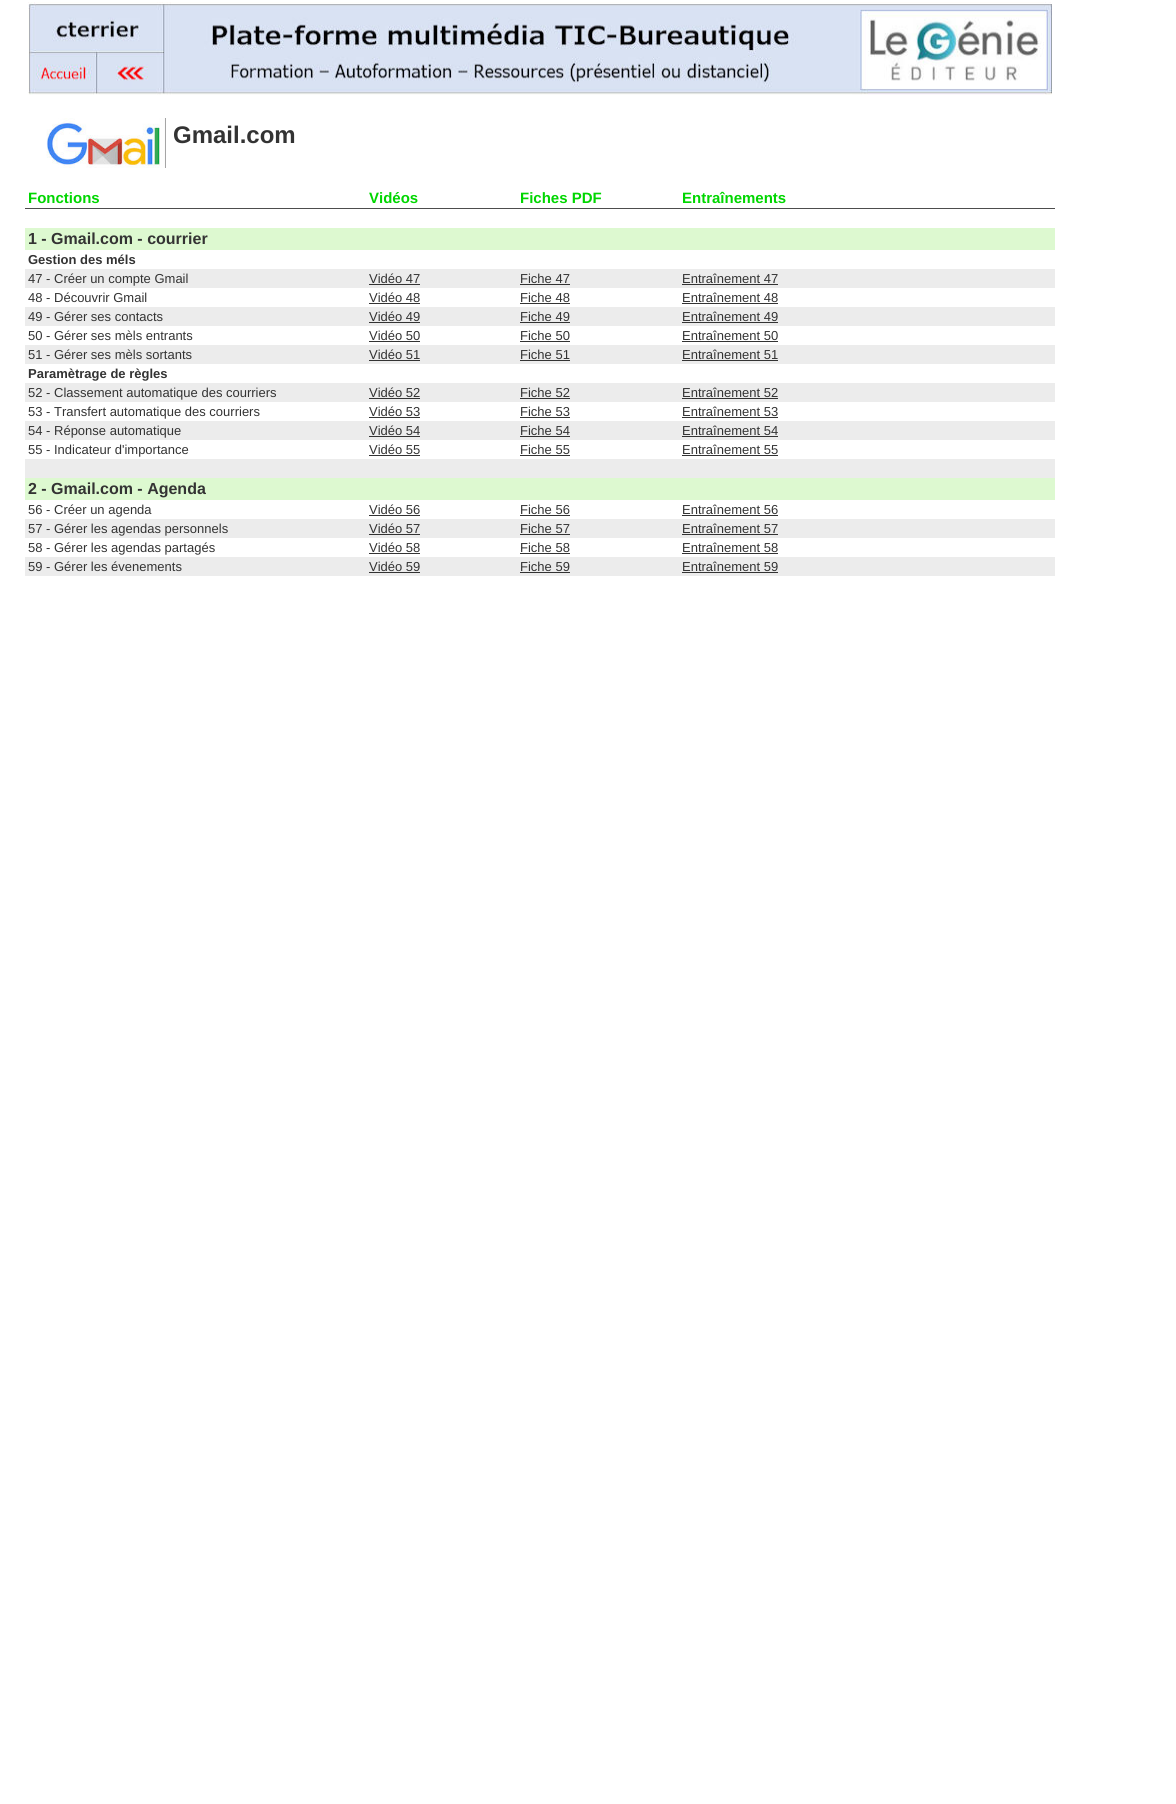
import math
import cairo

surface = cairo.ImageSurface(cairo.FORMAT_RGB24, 1176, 1804)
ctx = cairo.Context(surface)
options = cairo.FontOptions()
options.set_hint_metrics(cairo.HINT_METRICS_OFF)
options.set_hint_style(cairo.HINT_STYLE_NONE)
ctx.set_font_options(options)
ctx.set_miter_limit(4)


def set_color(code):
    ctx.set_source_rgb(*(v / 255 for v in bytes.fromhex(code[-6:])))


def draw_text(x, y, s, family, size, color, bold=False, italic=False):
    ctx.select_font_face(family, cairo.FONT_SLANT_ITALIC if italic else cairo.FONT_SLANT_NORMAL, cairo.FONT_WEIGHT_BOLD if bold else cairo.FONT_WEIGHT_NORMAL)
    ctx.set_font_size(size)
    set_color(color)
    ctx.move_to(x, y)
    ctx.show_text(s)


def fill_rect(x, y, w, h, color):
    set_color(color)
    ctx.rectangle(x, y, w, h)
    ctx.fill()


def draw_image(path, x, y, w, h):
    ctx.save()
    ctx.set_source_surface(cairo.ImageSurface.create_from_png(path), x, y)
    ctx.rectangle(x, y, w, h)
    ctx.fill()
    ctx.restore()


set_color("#ffffff")
ctx.paint()
draw_image("assets/img1.png", 28, 2, 1024, 93)
draw_image("assets/img2.png", 46, 118, 120, 50)
draw_text(173, 143, "Gmail.com", "Liberation Sans", 24, "#333333", bold=True)
fill_rect(25, 208, 1030, 1, "#4d4d4d")
draw_text(28, 203, "Fonctions", "Liberation Sans", 15, "#00d600", bold=True)
draw_text(369, 203, "Vidéos", "Liberation Sans", 15, "#00d600", bold=True)
draw_text(520, 203, "Fiches PDF", "Liberation Sans", 15, "#00d600", bold=True)
draw_text(682, 203, "Entraînements", "Liberation Sans", 15, "#00d600", bold=True)
fill_rect(25, 228, 1030, 22, "#ddf9d0")
draw_text(28, 244, "1 - Gmail.com - courrier", "Liberation Sans", 16, "#333333", bold=True)
draw_text(28, 264, "Gestion des méls", "Liberation Sans", 13, "#333333", bold=True)
fill_rect(25, 269, 1030, 19, "#ececec")
draw_text(28, 283, "47 - Créer un compte Gmail", "Liberation Sans", 13, "#333333")
draw_text(369, 283, "Vidéo 47", "Liberation Sans", 13, "#333333")
fill_rect(369, 284, 51, 1, "#333333")
draw_text(520, 283, "Fiche 47", "Liberation Sans", 13, "#333333")
fill_rect(520, 284, 50, 1, "#333333")
draw_text(682, 283, "Entraînement 47", "Liberation Sans", 13, "#333333")
fill_rect(682, 284, 96, 1, "#333333")
draw_text(28, 302, "48 - Découvrir Gmail", "Liberation Sans", 13, "#333333")
draw_text(369, 302, "Vidéo 48", "Liberation Sans", 13, "#333333")
fill_rect(369, 303, 51, 1, "#333333")
draw_text(520, 302, "Fiche 48", "Liberation Sans", 13, "#333333")
fill_rect(520, 303, 50, 1, "#333333")
draw_text(682, 302, "Entraînement 48", "Liberation Sans", 13, "#333333")
fill_rect(682, 303, 96, 1, "#333333")
fill_rect(25, 307, 1030, 19, "#ececec")
draw_text(28, 321, "49 - Gérer ses contacts", "Liberation Sans", 13, "#333333")
draw_text(369, 321, "Vidéo 49", "Liberation Sans", 13, "#333333")
fill_rect(369, 322, 51, 1, "#333333")
draw_text(520, 321, "Fiche 49", "Liberation Sans", 13, "#333333")
fill_rect(520, 322, 50, 1, "#333333")
draw_text(682, 321, "Entraînement 49", "Liberation Sans", 13, "#333333")
fill_rect(682, 322, 96, 1, "#333333")
draw_text(28, 340, "50 - Gérer ses mèls entrants", "Liberation Sans", 13, "#333333")
draw_text(369, 340, "Vidéo 50", "Liberation Sans", 13, "#333333")
fill_rect(369, 341, 51, 1, "#333333")
draw_text(520, 340, "Fiche 50", "Liberation Sans", 13, "#333333")
fill_rect(520, 341, 50, 1, "#333333")
draw_text(682, 340, "Entraînement 50", "Liberation Sans", 13, "#333333")
fill_rect(682, 341, 96, 1, "#333333")
fill_rect(25, 345, 1030, 19, "#ececec")
draw_text(28, 359, "51 - Gérer ses mèls sortants", "Liberation Sans", 13, "#333333")
draw_text(369, 359, "Vidéo 51", "Liberation Sans", 13, "#333333")
fill_rect(369, 360, 51, 1, "#333333")
draw_text(520, 359, "Fiche 51", "Liberation Sans", 13, "#333333")
fill_rect(520, 360, 50, 1, "#333333")
draw_text(682, 359, "Entraînement 51", "Liberation Sans", 13, "#333333")
fill_rect(682, 360, 96, 1, "#333333")
draw_text(28, 378, "Paramètrage de règles", "Liberation Sans", 13, "#333333", bold=True)
fill_rect(25, 383, 1030, 19, "#ececec")
draw_text(28, 397, "52 - Classement automatique des courriers", "Liberation Sans", 13, "#333333")
draw_text(369, 397, "Vidéo 52", "Liberation Sans", 13, "#333333")
fill_rect(369, 398, 51, 1, "#333333")
draw_text(520, 397, "Fiche 52", "Liberation Sans", 13, "#333333")
fill_rect(520, 398, 50, 1, "#333333")
draw_text(682, 397, "Entraînement 52", "Liberation Sans", 13, "#333333")
fill_rect(682, 398, 96, 1, "#333333")
draw_text(28, 416, "53 - Transfert automatique des courriers", "Liberation Sans", 13, "#333333")
draw_text(369, 416, "Vidéo 53", "Liberation Sans", 13, "#333333")
fill_rect(369, 417, 51, 1, "#333333")
draw_text(520, 416, "Fiche 53", "Liberation Sans", 13, "#333333")
fill_rect(520, 417, 50, 1, "#333333")
draw_text(682, 416, "Entraînement 53", "Liberation Sans", 13, "#333333")
fill_rect(682, 417, 96, 1, "#333333")
fill_rect(25, 421, 1030, 19, "#ececec")
draw_text(28, 435, "54 - Réponse automatique", "Liberation Sans", 13, "#333333")
draw_text(369, 435, "Vidéo 54", "Liberation Sans", 13, "#333333")
fill_rect(369, 436, 51, 1, "#333333")
draw_text(520, 435, "Fiche 54", "Liberation Sans", 13, "#333333")
fill_rect(520, 436, 50, 1, "#333333")
draw_text(682, 435, "Entraînement 54", "Liberation Sans", 13, "#333333")
fill_rect(682, 436, 96, 1, "#333333")
draw_text(28, 454, "55 - Indicateur d'importance", "Liberation Sans", 13, "#333333")
draw_text(369, 454, "Vidéo 55", "Liberation Sans", 13, "#333333")
fill_rect(369, 455, 51, 1, "#333333")
draw_text(520, 454, "Fiche 55", "Liberation Sans", 13, "#333333")
fill_rect(520, 455, 50, 1, "#333333")
draw_text(682, 454, "Entraînement 55", "Liberation Sans", 13, "#333333")
fill_rect(682, 455, 96, 1, "#333333")
fill_rect(25, 459, 1030, 19, "#ececec")
fill_rect(25, 478, 1030, 22, "#ddf9d0")
draw_text(28, 494, "2 - Gmail.com - Agenda", "Liberation Sans", 16, "#333333", bold=True)
draw_text(28, 514, "56 - Créer un agenda", "Liberation Sans", 13, "#333333")
draw_text(369, 514, "Vidéo 56", "Liberation Sans", 13, "#333333")
fill_rect(369, 515, 51, 1, "#333333")
draw_text(520, 514, "Fiche 56", "Liberation Sans", 13, "#333333")
fill_rect(520, 515, 50, 1, "#333333")
draw_text(682, 514, "Entraînement 56", "Liberation Sans", 13, "#333333")
fill_rect(682, 515, 96, 1, "#333333")
fill_rect(25, 519, 1030, 19, "#ececec")
draw_text(28, 533, "57 - Gérer les agendas personnels", "Liberation Sans", 13, "#333333")
draw_text(369, 533, "Vidéo 57", "Liberation Sans", 13, "#333333")
fill_rect(369, 534, 51, 1, "#333333")
draw_text(520, 533, "Fiche 57", "Liberation Sans", 13, "#333333")
fill_rect(520, 534, 50, 1, "#333333")
draw_text(682, 533, "Entraînement 57", "Liberation Sans", 13, "#333333")
fill_rect(682, 534, 96, 1, "#333333")
draw_text(28, 552, "58 - Gérer les agendas partagés", "Liberation Sans", 13, "#333333")
draw_text(369, 552, "Vidéo 58", "Liberation Sans", 13, "#333333")
fill_rect(369, 553, 51, 1, "#333333")
draw_text(520, 552, "Fiche 58", "Liberation Sans", 13, "#333333")
fill_rect(520, 553, 50, 1, "#333333")
draw_text(682, 552, "Entraînement 58", "Liberation Sans", 13, "#333333")
fill_rect(682, 553, 96, 1, "#333333")
fill_rect(25, 557, 1030, 19, "#ececec")
draw_text(28, 571, "59 - Gérer les évenements", "Liberation Sans", 13, "#333333")
draw_text(369, 571, "Vidéo 59", "Liberation Sans", 13, "#333333")
fill_rect(369, 572, 51, 1, "#333333")
draw_text(520, 571, "Fiche 59", "Liberation Sans", 13, "#333333")
fill_rect(520, 572, 50, 1, "#333333")
draw_text(682, 571, "Entraînement 59", "Liberation Sans", 13, "#333333")
fill_rect(682, 572, 96, 1, "#333333")
surface.write_to_png("output.png")
